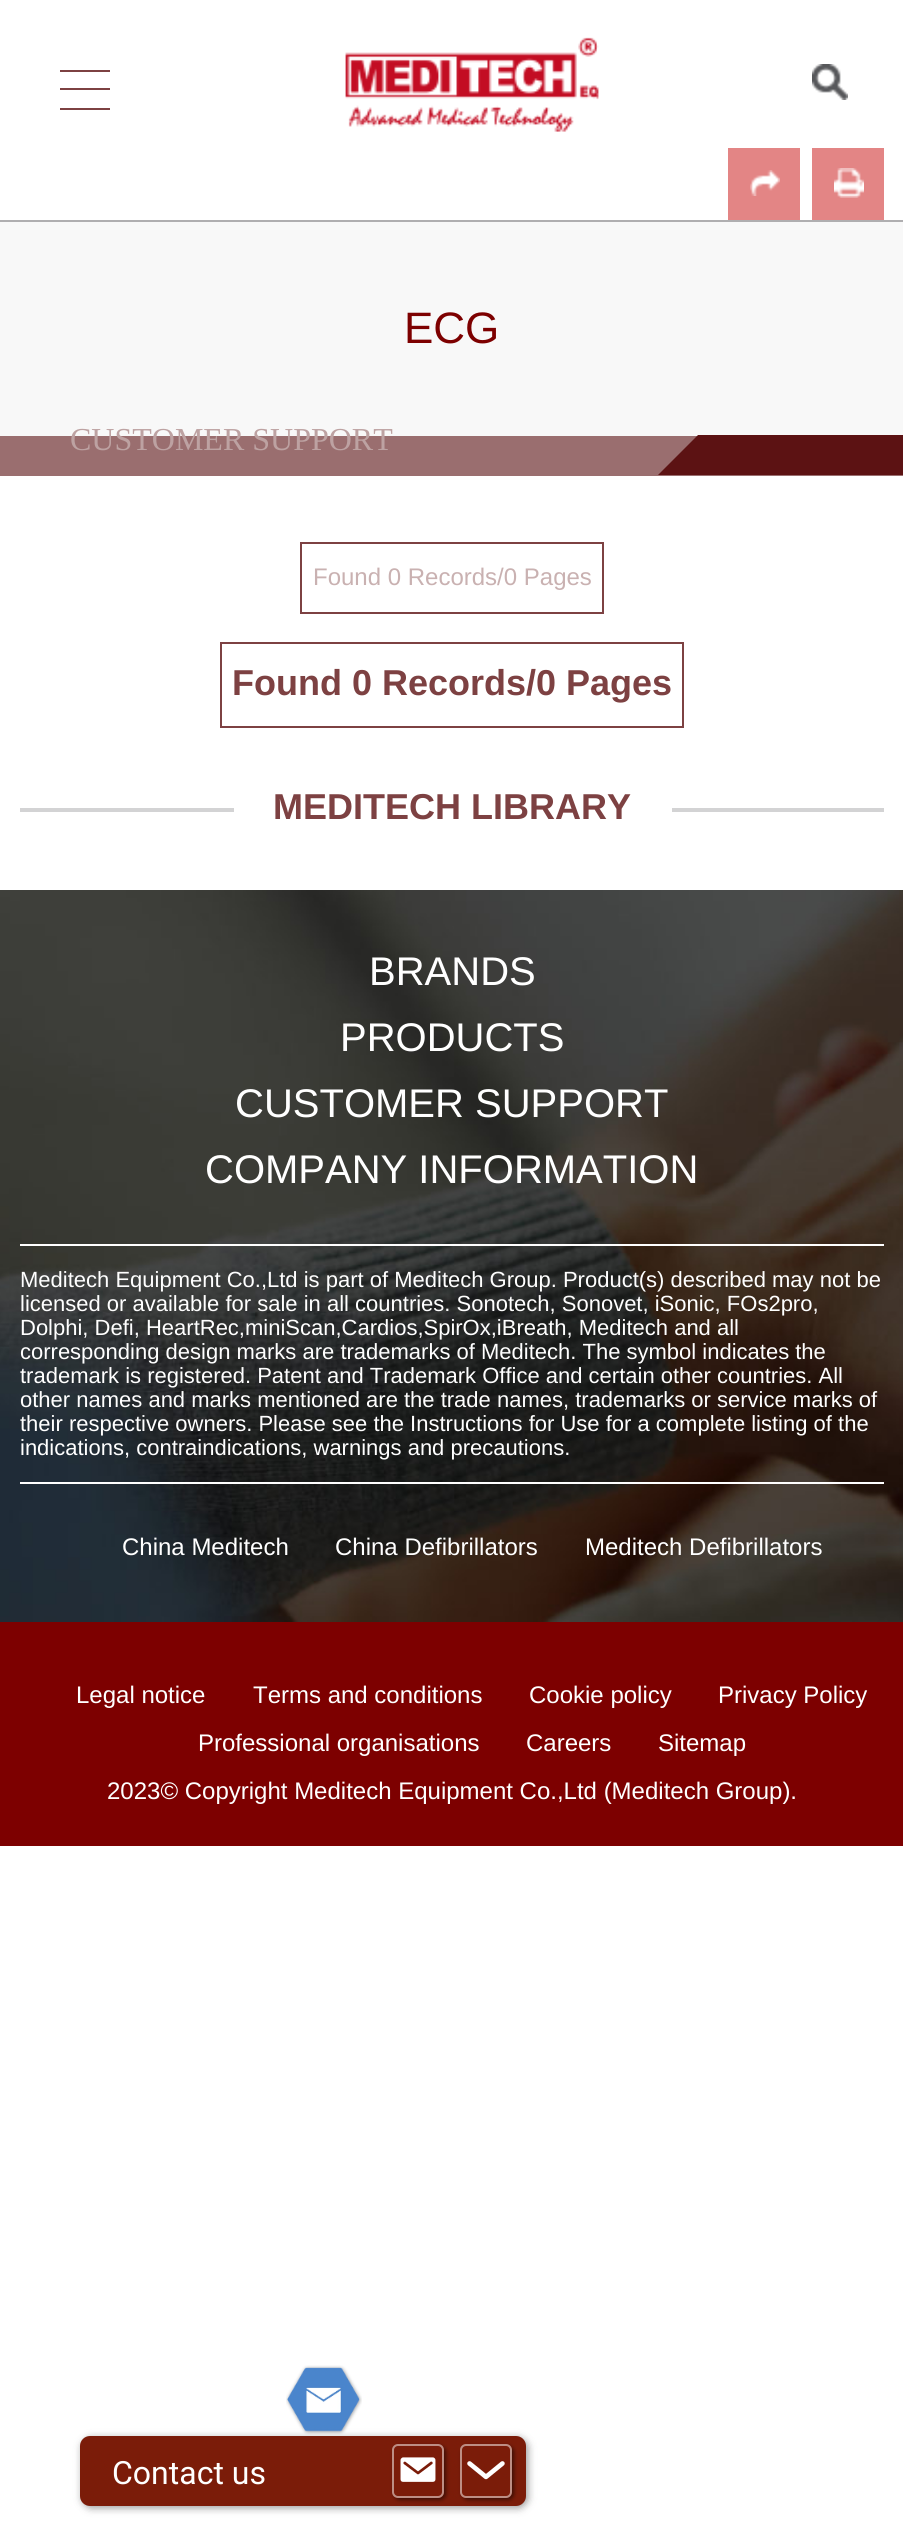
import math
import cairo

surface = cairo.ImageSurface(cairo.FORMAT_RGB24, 903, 2525)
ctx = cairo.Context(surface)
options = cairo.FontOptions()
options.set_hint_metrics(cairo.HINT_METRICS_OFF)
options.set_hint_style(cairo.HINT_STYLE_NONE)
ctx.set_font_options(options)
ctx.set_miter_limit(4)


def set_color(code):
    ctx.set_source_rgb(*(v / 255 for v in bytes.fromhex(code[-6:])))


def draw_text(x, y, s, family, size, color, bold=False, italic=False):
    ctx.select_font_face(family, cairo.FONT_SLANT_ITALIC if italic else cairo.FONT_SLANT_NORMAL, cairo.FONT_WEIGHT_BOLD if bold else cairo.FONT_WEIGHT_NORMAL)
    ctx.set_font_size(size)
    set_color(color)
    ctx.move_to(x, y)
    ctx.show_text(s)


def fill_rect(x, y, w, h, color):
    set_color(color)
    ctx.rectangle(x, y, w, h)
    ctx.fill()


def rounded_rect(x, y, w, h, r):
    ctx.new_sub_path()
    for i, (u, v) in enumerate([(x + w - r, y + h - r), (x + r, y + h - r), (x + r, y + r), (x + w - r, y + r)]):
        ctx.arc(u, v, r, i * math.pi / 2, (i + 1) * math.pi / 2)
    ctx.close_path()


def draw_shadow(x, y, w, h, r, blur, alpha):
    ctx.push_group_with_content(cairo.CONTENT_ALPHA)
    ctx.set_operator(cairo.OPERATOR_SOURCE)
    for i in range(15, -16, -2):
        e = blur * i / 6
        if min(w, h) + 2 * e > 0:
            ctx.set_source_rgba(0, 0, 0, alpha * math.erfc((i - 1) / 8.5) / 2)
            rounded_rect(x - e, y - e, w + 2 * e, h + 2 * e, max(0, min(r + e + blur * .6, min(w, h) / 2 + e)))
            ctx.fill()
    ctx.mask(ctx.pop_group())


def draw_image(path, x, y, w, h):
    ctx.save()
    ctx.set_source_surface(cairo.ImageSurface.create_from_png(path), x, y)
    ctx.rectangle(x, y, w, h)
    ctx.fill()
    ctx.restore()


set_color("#ffffff")
ctx.paint()
fill_rect(0, 220, 903, 2, "#afaeb0")
fill_rect(728, 148, 72, 72, "#e38585")
draw_image("assets/img1.png", 750, 170, 30, 26)
fill_rect(812, 148, 72, 72, "#e38585")
draw_image("assets/img2.png", 834, 168, 30, 30)
fill_rect(0, 222, 903, 214, "#f8f8f8")
draw_text(404, 343, "ECG", "Liberation Sans", 44, "#7d0000")
fill_rect(0, 436, 903, 40, "#9a6e6f")
set_color("#5c1213")
ctx.new_path()
ctx.move_to(698, 435)
ctx.line_to(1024, 435)
ctx.line_to(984, 475)
ctx.line_to(658, 475)
ctx.close_path()
ctx.fill()
draw_image("assets/img3.png", 345, 37, 254, 95)
fill_rect(60, 70, 50, 2, "#7d4142")
fill_rect(60, 88, 50, 2, "#7d4142")
fill_rect(60, 108, 50, 2, "#7d4142")
draw_image("assets/img4.png", 812, 64, 36, 36)
draw_text(70, 450, "CUSTOMER SUPPORT", "Liberation Serif", 32, "#bda2a2")
ctx.rectangle(301, 543, 302, 70)
set_color("#7d4142")
ctx.stroke()
draw_text(313, 585, "Found 0 Records/0 Pages", "Liberation Sans", 24, "#c9b1b1")
ctx.rectangle(221, 643, 462, 84)
set_color("#7d4142")
ctx.stroke()
draw_text(232, 695, "Found 0 Records/0 Pages", "Liberation Sans", 36, "#7d4142", bold=True)
fill_rect(20, 808, 214, 4, "#d3d3d4")
draw_text(273, 819, "MEDITECH LIBRARY", "Liberation Sans", 36, "#7d4142", bold=True)
fill_rect(672, 808, 212, 4, "#d3d3d4")
draw_image("assets/img5.png", 0, 890, 903, 732)
draw_text(369, 985, "BRANDS", "Liberation Sans", 40, "#ffffff")
draw_text(340, 1051, "PRODUCTS", "Liberation Sans", 40, "#ffffff")
draw_text(235, 1117, "CUSTOMER SUPPORT", "Liberation Sans", 40, "#ffffff")
draw_text(205, 1183, "COMPANY INFORMATION", "Liberation Sans", 40, "#ffffff")
fill_rect(20, 1244, 864, 2, "#ffffff")
fill_rect(20, 1482, 864, 2, "#ffffff")
draw_text(20, 1287, "Meditech Equipment Co.,Ltd is part of Meditech Group. Product(s) described may not be", "Liberation Sans", 22, "#ffffff")
draw_text(20, 1311, "licensed or available for sale in all countries. Sonotech, Sonovet, iSonic, FOs2pro,", "Liberation Sans", 22, "#ffffff")
draw_text(20, 1335, "Dolphi, Defi, HeartRec,miniScan,Cardios,SpirOx,iBreath, Meditech and all", "Liberation Sans", 22, "#ffffff")
draw_text(20, 1359, "corresponding design marks are trademarks of Meditech. The symbol indicates the", "Liberation Sans", 22, "#ffffff")
draw_text(20, 1383, "trademark is registered. Patent and Trademark Office and certain other countries. All", "Liberation Sans", 22, "#ffffff")
draw_text(20, 1407, "other names and marks mentioned are the trade names, trademarks or service marks of", "Liberation Sans", 22, "#ffffff")
draw_text(20, 1431, "their respective owners. Please see the Instructions for Use for a complete listing of the", "Liberation Sans", 22, "#ffffff")
draw_text(20, 1455, "indications, contraindications, warnings and precautions.", "Liberation Sans", 22, "#ffffff")
draw_text(122, 1555, "China Meditech", "Liberation Sans", 24, "#ffffff")
draw_text(335, 1555, "China Defibrillators", "Liberation Sans", 24, "#ffffff")
draw_text(585, 1555, "Meditech Defibrillators", "Liberation Sans", 24, "#ffffff")
fill_rect(0, 1622, 903, 224, "#7d0000")
draw_text(76, 1703, "Legal notice", "Liberation Sans", 24, "#ffffff")
draw_text(253, 1703, "Terms and conditions", "Liberation Sans", 24, "#ffffff")
draw_text(529, 1703, "Cookie policy", "Liberation Sans", 24, "#ffffff")
draw_text(718, 1703, "Privacy Policy", "Liberation Sans", 24, "#ffffff")
draw_text(198, 1751, "Professional organisations", "Liberation Sans", 24, "#ffffff")
draw_text(526, 1751, "Careers", "Liberation Sans", 24, "#ffffff")
draw_text(658, 1751, "Sitemap", "Liberation Sans", 24, "#ffffff")
draw_text(107, 1799, "2023© Copyright Meditech Equipment Co.,Ltd (Meditech Group).", "Liberation Sans", 24, "#ffffff")
set_color("#000000")
draw_shadow(82, 2438, 446, 70, 10, 4, 0.4)
draw_image("assets/img6.png", 286, 2365, 76, 70)
set_color("#7b1c09")
rounded_rect(80, 2436, 446, 70, 10)
ctx.fill()
draw_text(112, 2484, "Contact us", "Roboto", 32, "#ffffff")
ctx.save()
ctx.set_fill_rule(cairo.FILL_RULE_EVEN_ODD)
ctx.new_path()
ctx.move_to(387, 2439)
ctx.line_to(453, 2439)
ctx.line_to(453, 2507)
ctx.line_to(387, 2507)
ctx.close_path()
ctx.move_to(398, 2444)
ctx.line_to(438, 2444)
ctx.curve_to(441.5, 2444, 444, 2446.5, 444, 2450)
ctx.line_to(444, 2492)
ctx.curve_to(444, 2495.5, 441.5, 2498, 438, 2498)
ctx.line_to(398, 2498)
ctx.curve_to(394.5, 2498, 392, 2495.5, 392, 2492)
ctx.line_to(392, 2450)
ctx.curve_to(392, 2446.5, 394.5, 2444, 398, 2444)
ctx.close_path()
ctx.clip()
set_color("#000000")
draw_shadow(394, 2446, 52, 54, 6, 2, 0.5)
ctx.restore()
rounded_rect(393, 2445, 50, 52, 5)
ctx.set_source_rgba(1, 1, 1, 0.5)
ctx.stroke()
draw_image("assets/img7.png", 400, 2457, 36, 25)
ctx.save()
ctx.set_fill_rule(cairo.FILL_RULE_EVEN_ODD)
ctx.new_path()
ctx.move_to(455, 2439)
ctx.line_to(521, 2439)
ctx.line_to(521, 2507)
ctx.line_to(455, 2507)
ctx.close_path()
ctx.move_to(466, 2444)
ctx.line_to(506, 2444)
ctx.curve_to(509.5, 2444, 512, 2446.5, 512, 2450)
ctx.line_to(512, 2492)
ctx.curve_to(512, 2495.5, 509.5, 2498, 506, 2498)
ctx.line_to(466, 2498)
ctx.curve_to(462.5, 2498, 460, 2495.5, 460, 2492)
ctx.line_to(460, 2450)
ctx.curve_to(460, 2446.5, 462.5, 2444, 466, 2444)
ctx.close_path()
ctx.clip()
set_color("#000000")
draw_shadow(462, 2446, 52, 54, 6, 2, 0.5)
ctx.restore()
rounded_rect(461, 2445, 50, 52, 5)
ctx.stroke()
draw_image("assets/img8.png", 467, 2461, 38, 19)
surface.write_to_png("output.png")
